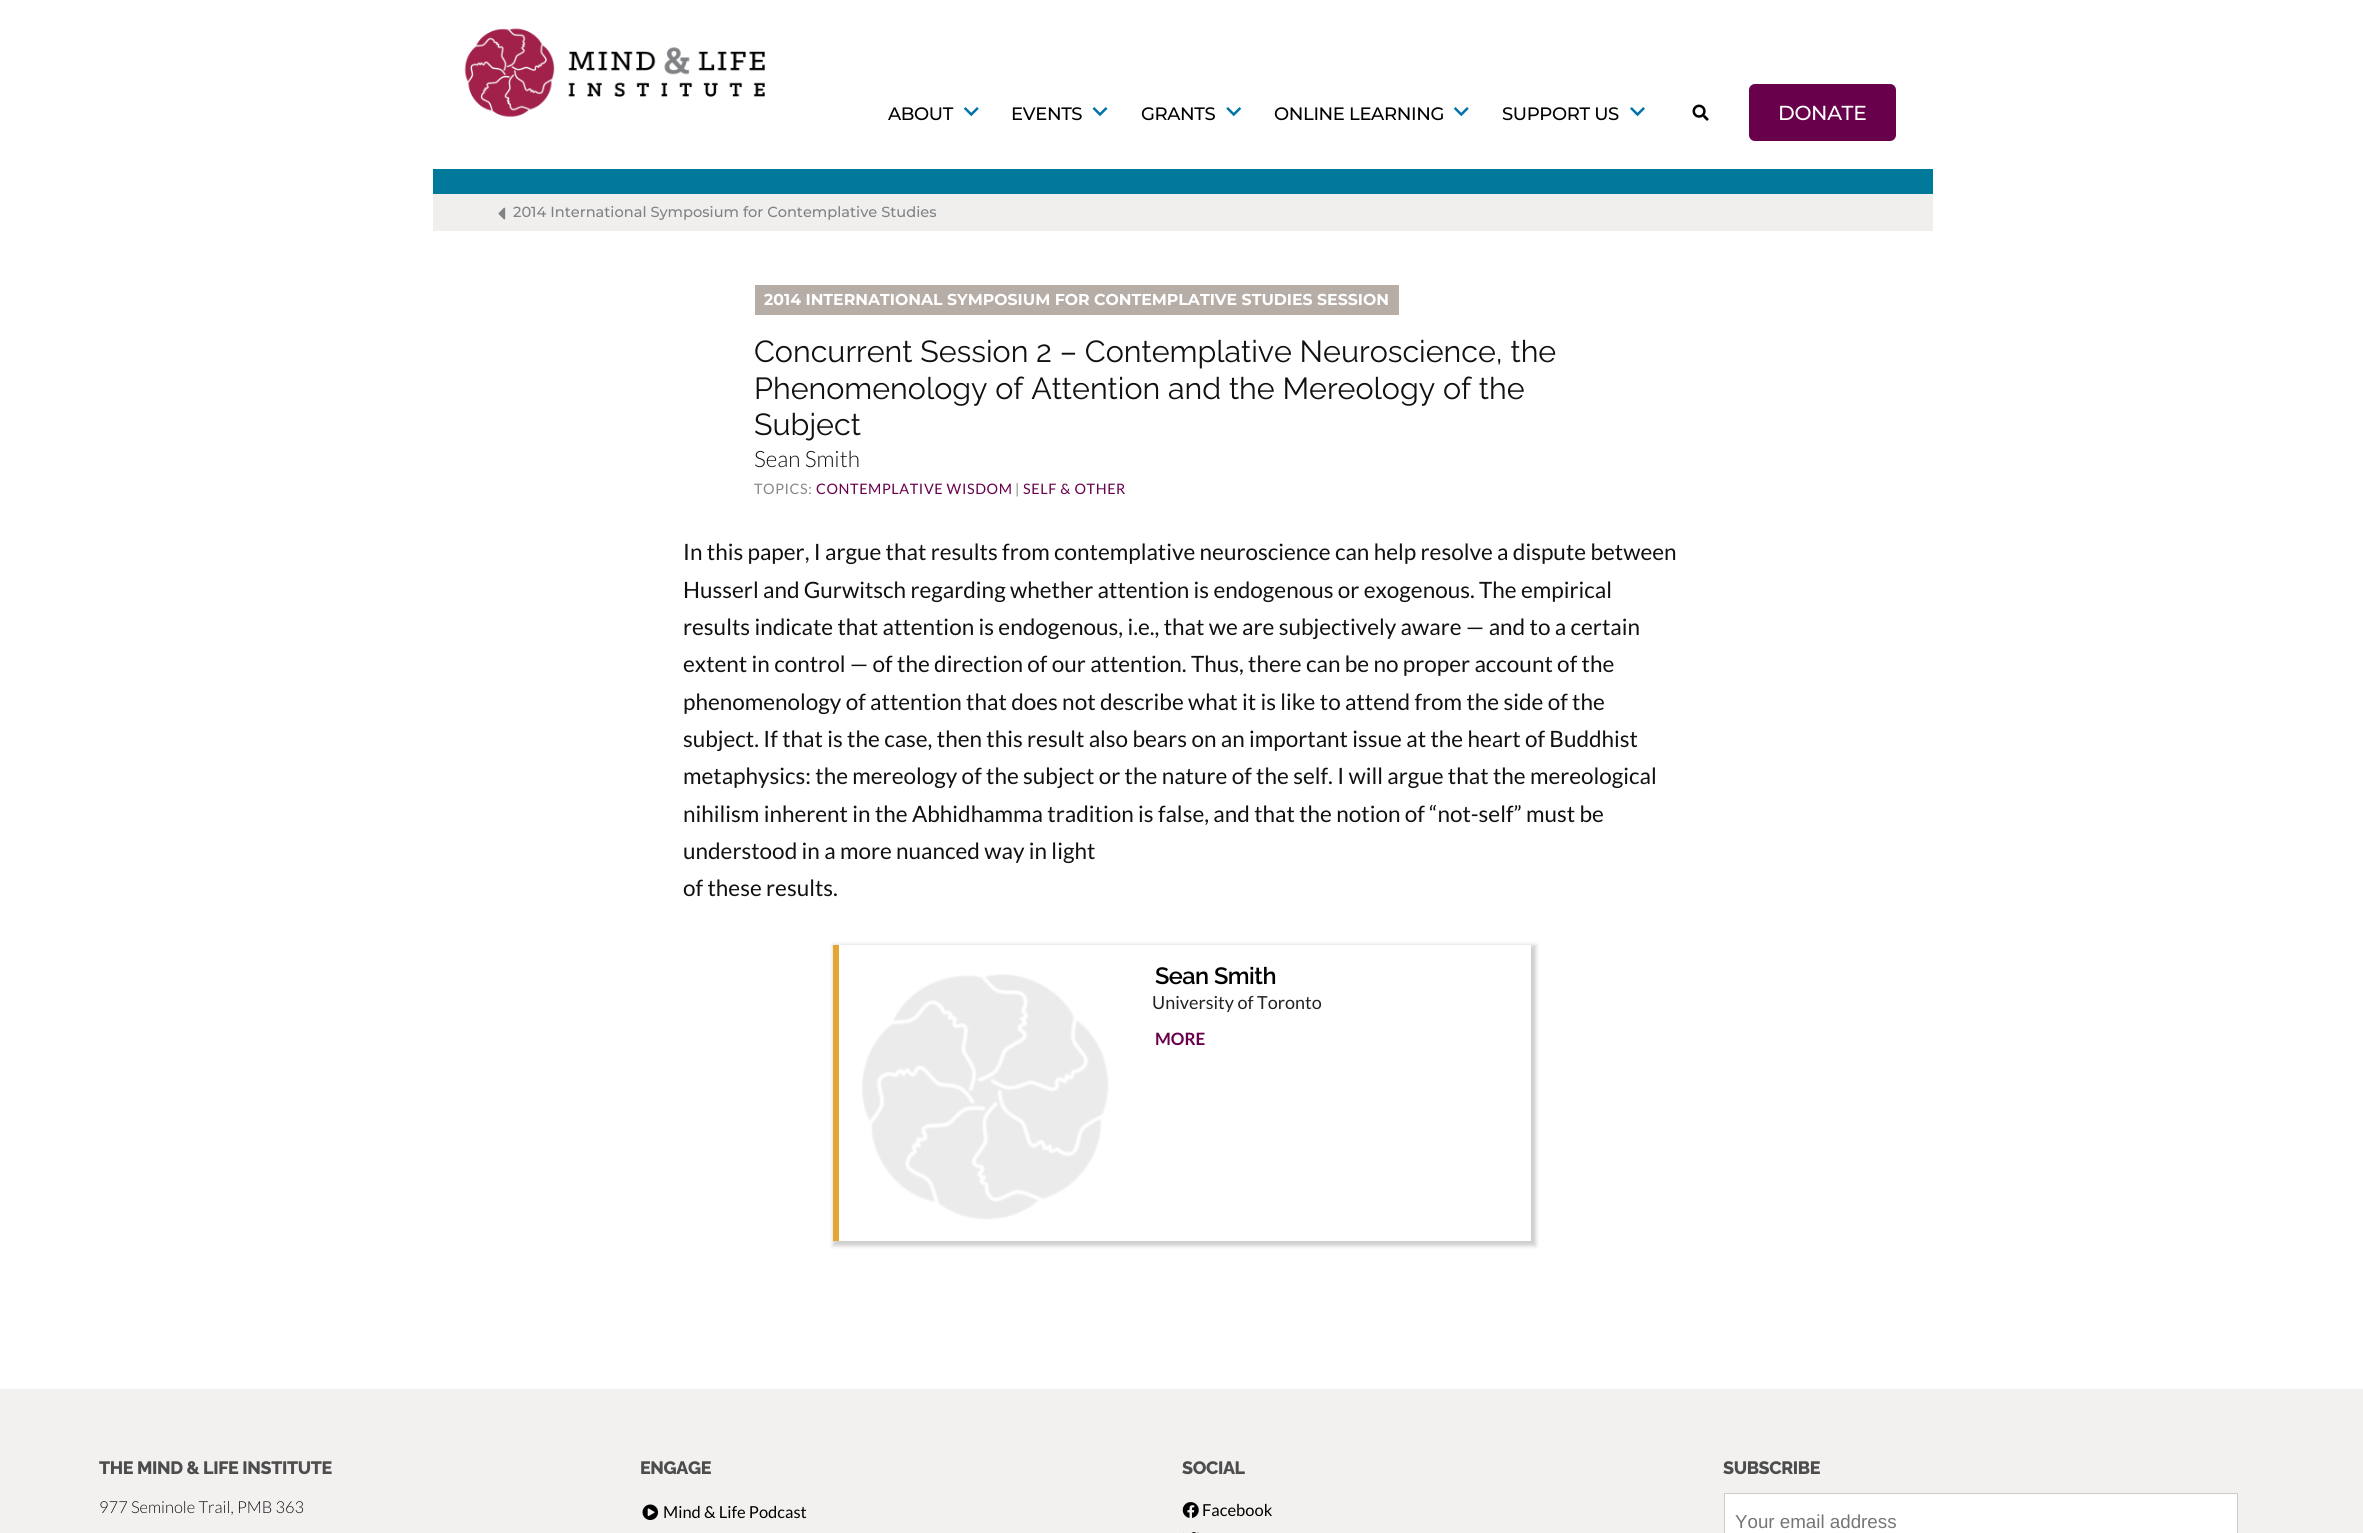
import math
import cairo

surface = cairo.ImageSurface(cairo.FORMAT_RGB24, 2363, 1533)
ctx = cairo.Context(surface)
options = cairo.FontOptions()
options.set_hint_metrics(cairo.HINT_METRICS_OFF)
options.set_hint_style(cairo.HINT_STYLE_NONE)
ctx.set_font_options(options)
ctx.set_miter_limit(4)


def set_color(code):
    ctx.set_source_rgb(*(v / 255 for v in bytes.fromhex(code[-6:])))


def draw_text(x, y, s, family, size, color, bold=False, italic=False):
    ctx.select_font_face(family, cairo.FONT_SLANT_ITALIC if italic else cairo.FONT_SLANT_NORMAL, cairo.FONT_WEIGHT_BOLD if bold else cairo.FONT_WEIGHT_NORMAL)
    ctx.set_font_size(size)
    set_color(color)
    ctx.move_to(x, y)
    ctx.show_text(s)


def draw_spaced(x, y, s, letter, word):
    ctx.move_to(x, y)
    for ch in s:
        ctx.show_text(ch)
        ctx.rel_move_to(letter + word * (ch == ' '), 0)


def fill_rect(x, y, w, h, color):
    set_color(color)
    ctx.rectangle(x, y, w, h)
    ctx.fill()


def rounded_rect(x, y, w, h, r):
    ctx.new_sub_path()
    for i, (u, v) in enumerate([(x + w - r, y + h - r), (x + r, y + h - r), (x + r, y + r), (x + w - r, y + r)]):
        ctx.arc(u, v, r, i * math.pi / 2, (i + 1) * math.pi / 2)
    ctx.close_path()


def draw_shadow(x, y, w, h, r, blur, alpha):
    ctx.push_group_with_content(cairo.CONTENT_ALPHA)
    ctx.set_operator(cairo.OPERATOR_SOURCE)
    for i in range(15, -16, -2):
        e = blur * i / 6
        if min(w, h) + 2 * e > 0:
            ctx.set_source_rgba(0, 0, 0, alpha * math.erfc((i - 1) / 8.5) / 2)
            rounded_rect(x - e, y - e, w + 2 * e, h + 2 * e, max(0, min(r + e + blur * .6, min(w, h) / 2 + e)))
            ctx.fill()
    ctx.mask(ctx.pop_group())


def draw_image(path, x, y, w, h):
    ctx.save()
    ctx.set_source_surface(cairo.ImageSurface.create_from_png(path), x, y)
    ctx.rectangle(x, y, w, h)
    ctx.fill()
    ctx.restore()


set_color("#ffffff")
ctx.paint()
draw_image("assets/img1.png", 464, 28, 301, 89)
ctx.select_font_face("Montserrat Medium")
ctx.set_font_size(18)
set_color("#000000")
draw_spaced(888, 120, "ABOUT", -0.35, 0)
draw_image("assets/img2.png", 963, 107, 16, 10)
draw_spaced(1011, 120, "EVENTS", -0.35, 0)
draw_image("assets/img3.png", 1092, 107, 16, 10)
draw_spaced(1141, 120, "GRANTS", -0.35, 0)
draw_image("assets/img4.png", 1226, 107, 16, 10)
draw_spaced(1274, 120, "ONLINE LEARNING", -0.35, 0)
draw_image("assets/img2.png", 1453, 107, 16, 10)
draw_spaced(1502, 120, "SUPPORT US", -0.35, 0)
draw_image("assets/img5.png", 1630, 107, 15, 10)
draw_image("assets/img6.png", 1692, 104, 17, 17)
set_color("#68004b")
rounded_rect(1749, 84, 147, 57, 6)
ctx.fill()
ctx.set_font_size(20.25)
set_color("#ffffff")
draw_spaced(1778, 120, "DONATE", -0.35, 0)
fill_rect(433, 169, 1500, 25, "#00799a")
fill_rect(433, 194, 1500, 37, "#f0efed")
draw_image("assets/img7.png", 498, 207, 8, 13)
draw_text(513, 217, "2014 International Symposium for Contemplative Studies", "Montserrat Medium", 14.6, "#808285")
fill_rect(755, 285, 644, 30, "#b6ada7")
draw_text(764, 305, "2014 INTERNATIONAL SYMPOSIUM FOR CONTEMPLATIVE STUDIES SESSION", "Montserrat", 15.75, "#ffffff", bold=True)
draw_text(754, 362, "Concurrent Session 2 – Contemplative Neuroscience, the", "Raleway", 30.4, "#111111")
draw_text(754, 399, "Phenomenology of Attention and the Mereology of the", "Raleway", 30.4, "#111111")
draw_text(754, 435, "Subject", "Raleway", 30.4, "#111111")
draw_text(754, 467, "Sean Smith", "Lato Light", 22.5, "#111111")
ctx.select_font_face("Lato")
ctx.set_font_size(14.4)
set_color("#888888")
draw_spaced(754, 494, "TOPICS:", 0.6, 0)
set_color("#68004b")
draw_spaced(816, 494, "CONTEMPLATIVE WISDOM", 0.6, 0)
set_color("#888888")
draw_spaced(1015, 494, "|", 0.6, 0)
set_color("#68004b")
draw_spaced(1023, 494, "SELF & OTHER", 0.6, 0)
draw_text(683, 560, "In this paper, I argue that results from contemplative neuroscience can help resolve a dispute between", "Lato", 22.5, "#111111")
draw_text(683, 598, "Husserl and Gurwitsch regarding whether attention is endogenous or exogenous. The empirical", "Lato", 22.5, "#111111")
draw_text(683, 635, "results indicate that attention is endogenous, i.e., that we are subjectively aware — and to a certain", "Lato", 22.5, "#111111")
draw_text(683, 672, "extent in control — of the direction of our attention. Thus, there can be no proper account of the", "Lato", 22.5, "#111111")
draw_text(683, 710, "phenomenology of attention that does not describe what it is like to attend from the side of the", "Lato", 22.5, "#111111")
draw_text(683, 747, "subject. If that is the case, then this result also bears on an important issue at the heart of Buddhist", "Lato", 22.5, "#111111")
draw_text(683, 784, "metaphysics: the mereology of the subject or the nature of the self. I will argue that the mereological", "Lato", 22.5, "#111111")
draw_text(683, 822, "nihilism inherent in the Abhidhamma tradition is false, and that the notion of “not-self” must be", "Lato", 22.5, "#111111")
draw_text(683, 859, "understood in a more nuanced way in light", "Lato", 22.5, "#111111")
draw_text(683, 896, "of these results.", "Lato", 22.5, "#111111")
ctx.save()
ctx.set_fill_rule(cairo.FILL_RULE_EVEN_ODD)
ctx.new_path()
ctx.move_to(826, 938)
ctx.line_to(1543, 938)
ctx.line_to(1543, 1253)
ctx.line_to(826, 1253)
ctx.close_path()
ctx.move_to(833, 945)
ctx.line_to(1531, 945)
ctx.line_to(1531, 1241)
ctx.line_to(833, 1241)
ctx.close_path()
ctx.clip()
set_color("#000000")
draw_shadow(833, 945, 703, 301, 0, 2, 0.19)
ctx.restore()
fill_rect(833, 945, 6, 296, "#e4a533")
draw_image("assets/img8.png", 861, 974, 248, 246)
ctx.select_font_face("Raleway SemiBold")
ctx.set_font_size(23.5)
set_color("#000000")
draw_spaced(1155, 984, "Sean Smith", -0.5, 0)
draw_text(1152, 1009, "University of Toronto", "Lato", 18, "#222222")
draw_text(1155, 1045, "MORE", "Lato", 17, "#68004b", bold=True)
fill_rect(0, 1389, 2363, 144, "#f3f1f0")
ctx.select_font_face("Raleway ExtraBold")
ctx.set_font_size(17.9)
set_color("#4d4d4d")
draw_spaced(99, 1474, "THE MIND & LIFE INSTITUTE", -0.35, 0)
draw_text(99, 1513, "977 Seminole Trail, PMB 363", "Lato Light", 16.5, "#111111")
ctx.select_font_face("Raleway ExtraBold")
ctx.set_font_size(17.9)
set_color("#4d4d4d")
draw_spaced(640, 1474, "ENGAGE", -0.35, 0)
draw_image("assets/img9.png", 642, 1504, 17, 16)
draw_text(663, 1518, "Mind & Life Podcast", "Lato", 16.5, "#000000")
ctx.select_font_face("Raleway ExtraBold")
ctx.set_font_size(17.9)
set_color("#4d4d4d")
draw_spaced(1182, 1474, "SOCIAL", -0.35, 0)
draw_image("assets/img10.png", 1182, 1502, 17, 16)
draw_text(1202, 1516, "Facebook", "Lato", 16.5, "#000000")
draw_image("assets/img11.png", 1183, 1532, 16, 1)
ctx.select_font_face("Raleway ExtraBold")
ctx.set_font_size(17.9)
set_color("#4d4d4d")
draw_spaced(1723, 1474, "SUBSCRIBE", -0.35, 0)
set_color("#ffffff")
ctx.rectangle(1724.5, 1493.5, 513, 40)
ctx.fill_preserve()
set_color("#cccccc")
ctx.set_line_width(1)
ctx.stroke()
draw_text(1735, 1528, "Your email address", "Liberation Sans", 18.75, "#757575")
surface.write_to_png("output.png")
